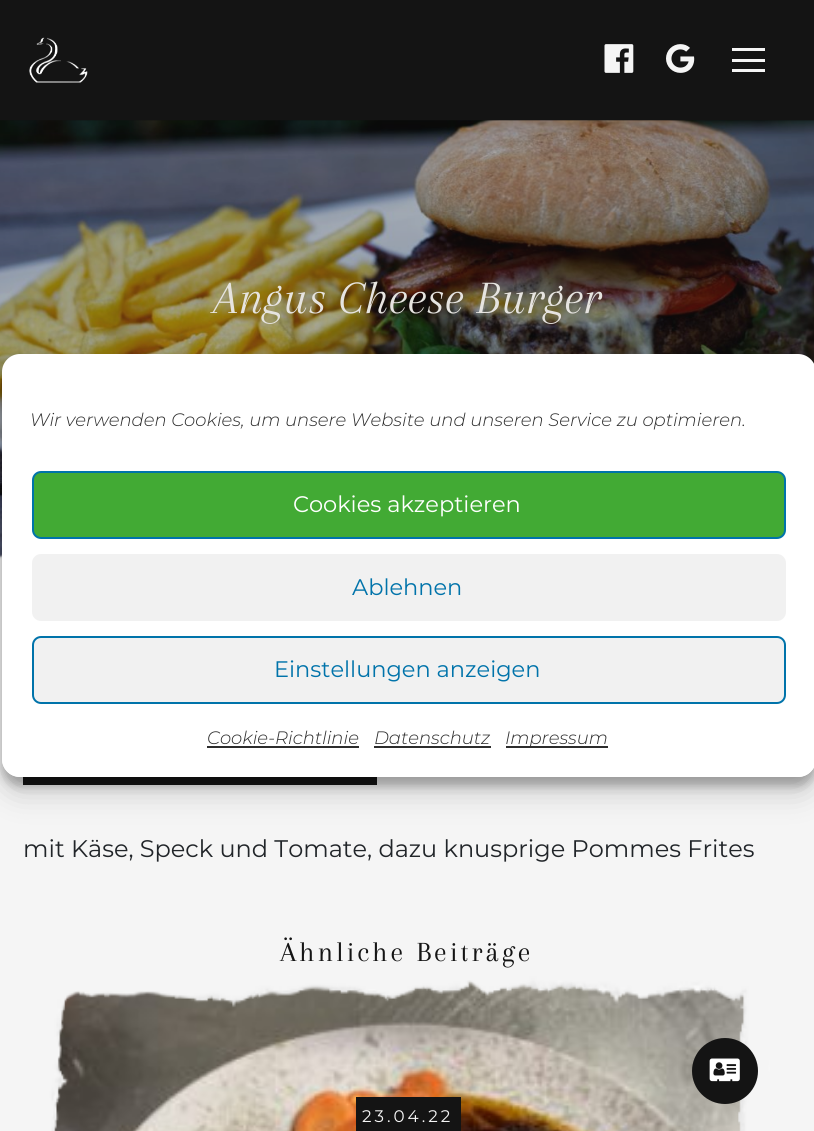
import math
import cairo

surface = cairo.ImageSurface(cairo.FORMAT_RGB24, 814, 1131)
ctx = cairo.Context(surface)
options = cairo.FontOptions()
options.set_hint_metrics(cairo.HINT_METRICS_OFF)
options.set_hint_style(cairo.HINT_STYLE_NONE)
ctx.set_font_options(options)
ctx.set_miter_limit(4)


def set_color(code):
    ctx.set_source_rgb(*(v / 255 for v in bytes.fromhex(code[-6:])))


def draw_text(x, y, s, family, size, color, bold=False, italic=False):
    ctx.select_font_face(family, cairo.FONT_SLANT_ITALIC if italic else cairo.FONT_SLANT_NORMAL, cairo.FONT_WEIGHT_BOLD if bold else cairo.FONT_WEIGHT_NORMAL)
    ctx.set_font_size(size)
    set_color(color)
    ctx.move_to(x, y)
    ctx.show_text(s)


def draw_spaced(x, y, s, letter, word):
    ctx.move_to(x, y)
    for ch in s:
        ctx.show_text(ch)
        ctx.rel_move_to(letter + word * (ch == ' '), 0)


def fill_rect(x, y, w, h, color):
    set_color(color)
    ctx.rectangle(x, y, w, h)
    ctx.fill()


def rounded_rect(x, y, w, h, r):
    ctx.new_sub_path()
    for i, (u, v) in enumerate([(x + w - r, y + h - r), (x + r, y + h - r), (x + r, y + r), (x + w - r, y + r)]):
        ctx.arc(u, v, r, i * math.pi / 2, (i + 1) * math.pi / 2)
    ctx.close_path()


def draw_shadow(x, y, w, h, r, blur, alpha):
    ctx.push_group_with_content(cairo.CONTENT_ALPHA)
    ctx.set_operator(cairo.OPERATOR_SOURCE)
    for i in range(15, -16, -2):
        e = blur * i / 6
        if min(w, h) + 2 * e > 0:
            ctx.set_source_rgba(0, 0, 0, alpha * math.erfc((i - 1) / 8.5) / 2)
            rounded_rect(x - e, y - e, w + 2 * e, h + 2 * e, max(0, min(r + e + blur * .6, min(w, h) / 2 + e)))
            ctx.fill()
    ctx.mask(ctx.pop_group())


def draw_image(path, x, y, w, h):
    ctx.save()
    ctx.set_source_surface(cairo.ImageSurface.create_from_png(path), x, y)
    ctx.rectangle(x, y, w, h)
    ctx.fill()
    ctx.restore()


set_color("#ffffff")
ctx.paint()
fill_rect(0, 0, 814, 120, "#141414")
draw_image("assets/img4.png", 0, 120, 814, 439)
ctx.set_source_rgba(0.078, 0.078, 0.078, 0.3)
ctx.rectangle(0, 120, 814, 1)
ctx.fill()
draw_image("assets/img1.png", 29, 37, 59, 46)
draw_image("assets/img2.png", 604, 44, 30, 29)
draw_image("assets/img3.png", 666, 44, 29, 29)
fill_rect(732, 48, 33, 3, "#f5f5f5")
fill_rect(732, 59, 33, 3, "#f5f5f5")
fill_rect(732, 69, 33, 3, "#f5f5f5")
draw_text(214, 313, "Angus Cheese Burger", "Arapey", 48, "#e6e4e0", italic=True)
fill_rect(0, 566, 814, 565, "#f5f5f5")
draw_image("assets/img8.png", 54, 980, 692, 151)
fill_rect(356, 1097, 105, 34, "#141414")
ctx.select_font_face("Montserrat")
ctx.set_font_size(16.75)
set_color("#f5f5f5")
draw_spaced(362, 1122, "23.04.22", 3, 0)
draw_image("assets/img7.png", 45, 969, 725, 162)
set_color("#141414")
ctx.arc(725, 1071, 33, 0, 2 * math.pi)
ctx.fill()
draw_image("assets/img5.png", 709, 1058, 31, 24)
draw_image("assets/img6.png", 0, 554, 2, 12)
fill_rect(23, 777, 354, 8, "#141414")
ctx.save()
ctx.set_fill_rule(cairo.FILL_RULE_EVEN_ODD)
ctx.new_path()
ctx.move_to(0, 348)
ctx.line_to(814, 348)
ctx.line_to(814, 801)
ctx.line_to(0, 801)
ctx.close_path()
ctx.move_to(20, 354)
ctx.line_to(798, 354)
ctx.curve_to(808, 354, 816, 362, 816, 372)
ctx.line_to(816, 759)
ctx.curve_to(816, 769, 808, 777, 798, 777)
ctx.line_to(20, 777)
ctx.curve_to(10, 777, 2, 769, 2, 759)
ctx.line_to(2, 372)
ctx.curve_to(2, 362, 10, 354, 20, 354)
ctx.close_path()
ctx.clip()
set_color("#000000")
draw_shadow(2, 363, 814, 423, 18, 4.5, 0.23)
ctx.restore()
ctx.save()
ctx.set_fill_rule(cairo.FILL_RULE_EVEN_ODD)
ctx.new_path()
ctx.move_to(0, 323)
ctx.line_to(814, 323)
ctx.line_to(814, 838)
ctx.line_to(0, 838)
ctx.close_path()
ctx.move_to(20, 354)
ctx.line_to(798, 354)
ctx.curve_to(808, 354, 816, 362, 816, 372)
ctx.line_to(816, 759)
ctx.curve_to(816, 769, 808, 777, 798, 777)
ctx.line_to(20, 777)
ctx.curve_to(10, 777, 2, 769, 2, 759)
ctx.line_to(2, 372)
ctx.curve_to(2, 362, 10, 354, 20, 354)
ctx.close_path()
ctx.clip()
set_color("#000000")
draw_shadow(2, 369, 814, 423, 18, 15, 0.19)
ctx.restore()
set_color("#ffffff")
rounded_rect(2, 354, 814, 423, 18)
ctx.fill()
draw_text(30, 426, "Wir verwenden Cookies, um unsere Website und unseren Service zu optimieren.", "Montserrat Light", 18, "#2d2d2d", italic=True)
set_color("#42aa34")
rounded_rect(33, 472, 752, 66, 8)
ctx.fill_preserve()
set_color("#0073aa")
ctx.stroke()
draw_text(293, 512, "Cookies akzeptieren", "Montserrat", 22.5, "#ffffff")
set_color("#f1f1f1")
rounded_rect(33, 555, 752, 65, 8)
ctx.fill_preserve()
ctx.stroke()
draw_text(352, 595, "Ablehnen", "Montserrat", 22.5, "#0073aa")
set_color("#f1f1f1")
rounded_rect(33, 637, 752, 66, 8)
ctx.fill_preserve()
set_color("#0073aa")
ctx.stroke()
draw_text(274, 677, "Einstellungen anzeigen", "Montserrat", 22.5, "#0073aa")
draw_text(207, 744, "Cookie-Richtlinie", "Montserrat Light", 18, "#2d2d2d", italic=True)
fill_rect(207, 746, 152, 2, "#2d2d2d")
draw_text(374, 744, "Datenschutz", "Montserrat Light", 18, "#2d2d2d", italic=True)
fill_rect(374, 746, 117, 2, "#2d2d2d")
fill_rect(506, 746, 102, 2, "#2d2d2d")
draw_text(505, 744, "Impressum", "Montserrat Light", 18, "#2d2d2d", italic=True)
draw_text(23, 857, "mit Käse, Speck und Tomate, dazu knusprige Pommes Frites", "Montserrat", 24, "#212529")
ctx.select_font_face("Arapey")
ctx.set_font_size(28.75)
set_color("#141414")
draw_spaced(280, 961, "Ähnliche Beiträge", 3, 0)
surface.write_to_png("output.png")
